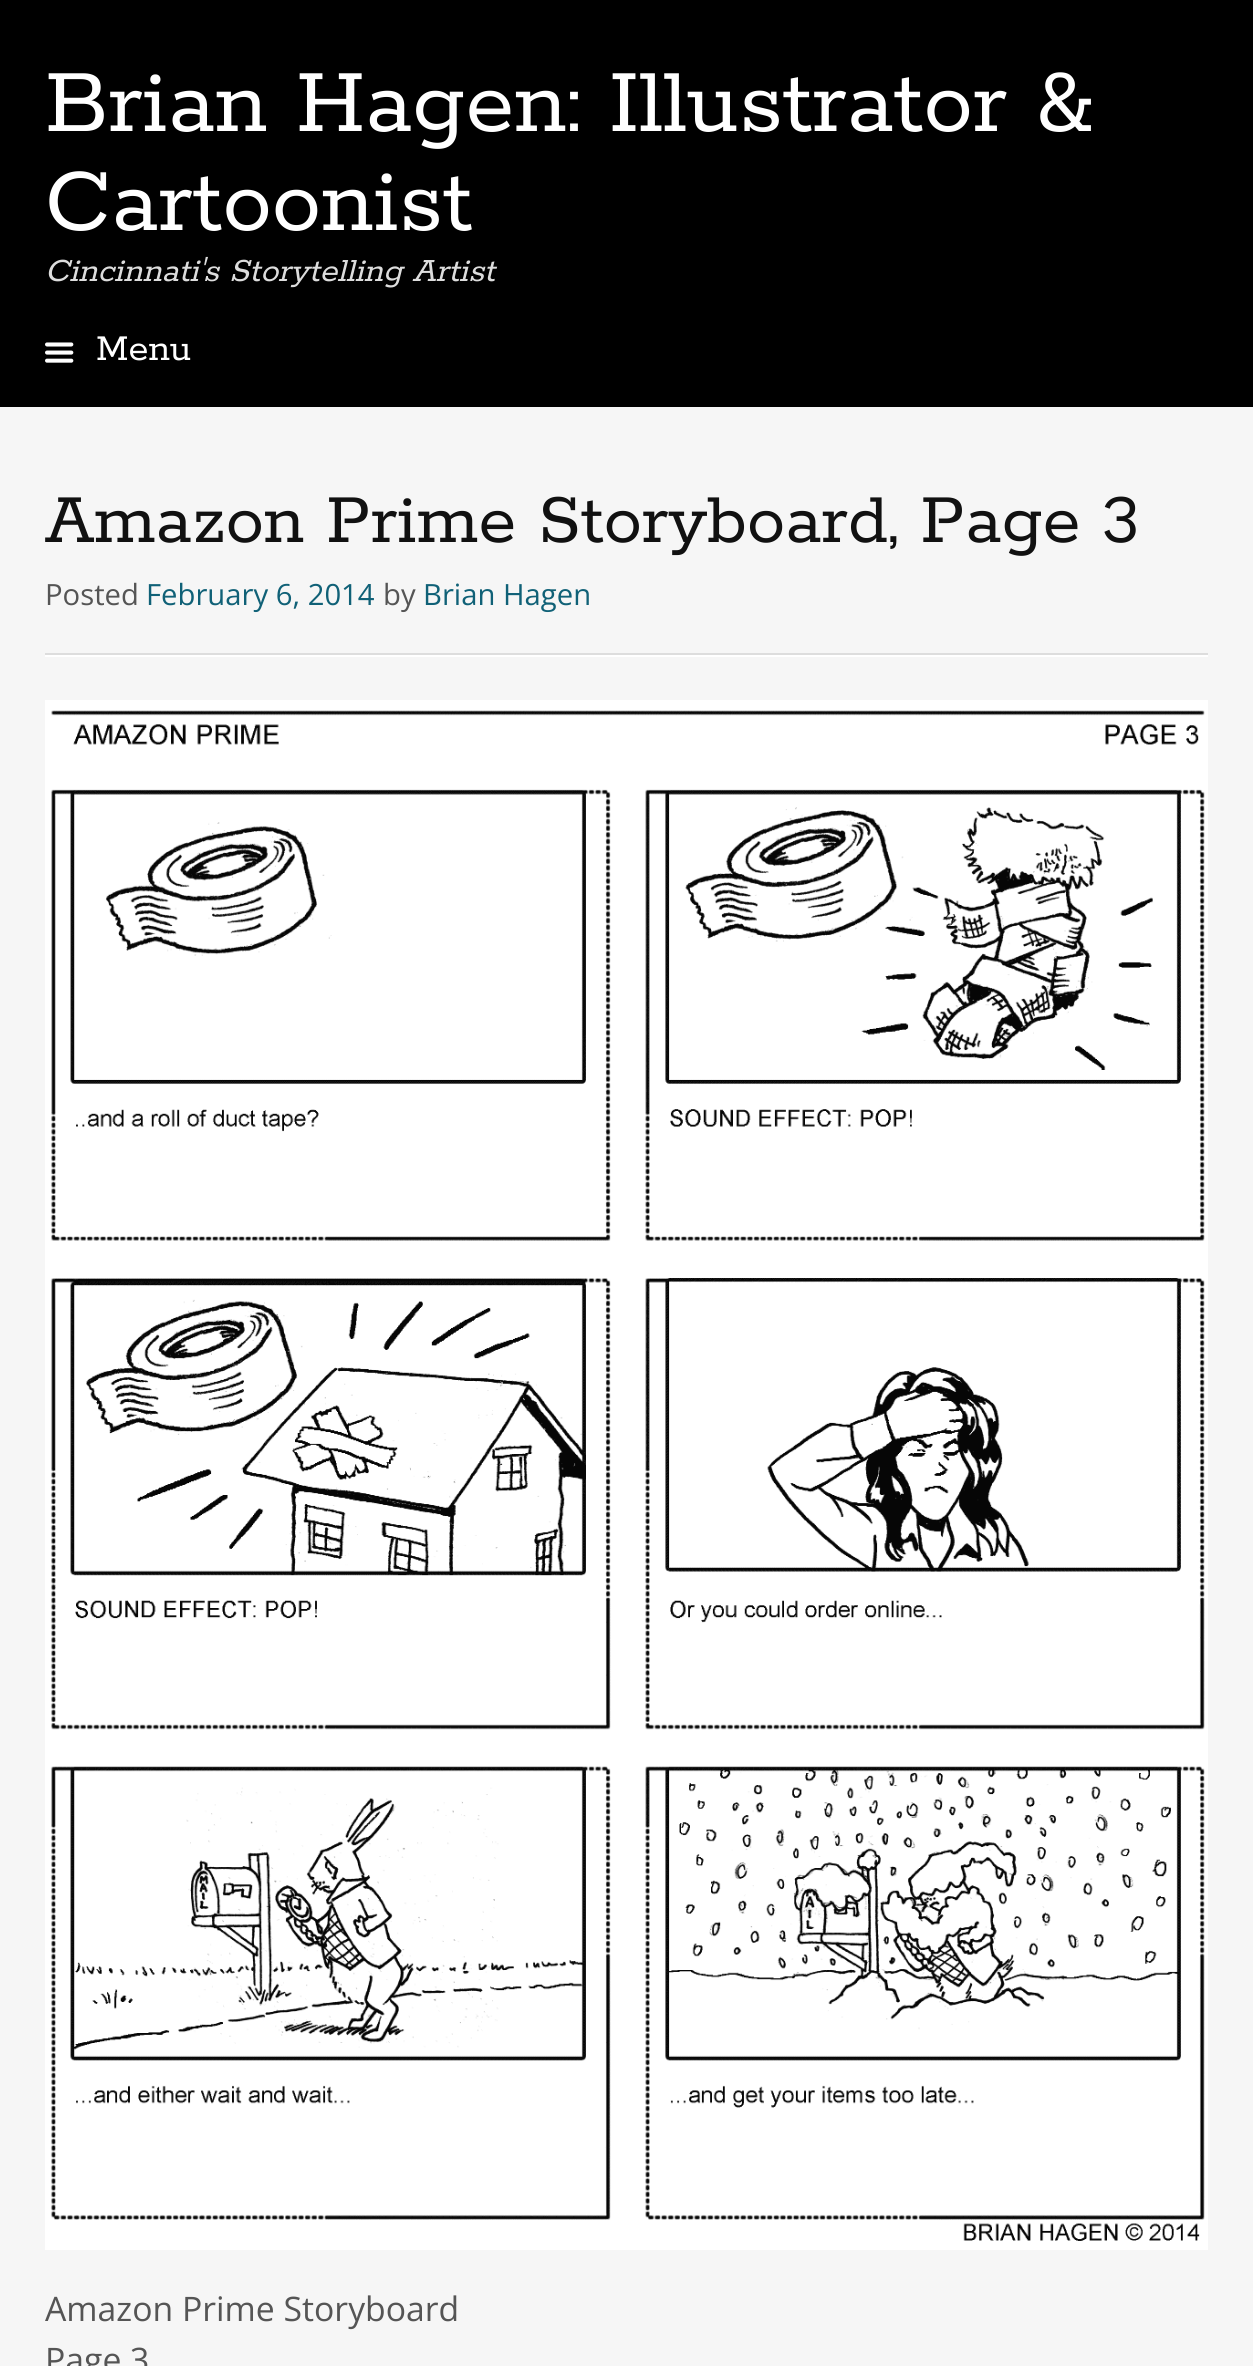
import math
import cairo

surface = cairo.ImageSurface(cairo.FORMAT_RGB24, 1253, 2366)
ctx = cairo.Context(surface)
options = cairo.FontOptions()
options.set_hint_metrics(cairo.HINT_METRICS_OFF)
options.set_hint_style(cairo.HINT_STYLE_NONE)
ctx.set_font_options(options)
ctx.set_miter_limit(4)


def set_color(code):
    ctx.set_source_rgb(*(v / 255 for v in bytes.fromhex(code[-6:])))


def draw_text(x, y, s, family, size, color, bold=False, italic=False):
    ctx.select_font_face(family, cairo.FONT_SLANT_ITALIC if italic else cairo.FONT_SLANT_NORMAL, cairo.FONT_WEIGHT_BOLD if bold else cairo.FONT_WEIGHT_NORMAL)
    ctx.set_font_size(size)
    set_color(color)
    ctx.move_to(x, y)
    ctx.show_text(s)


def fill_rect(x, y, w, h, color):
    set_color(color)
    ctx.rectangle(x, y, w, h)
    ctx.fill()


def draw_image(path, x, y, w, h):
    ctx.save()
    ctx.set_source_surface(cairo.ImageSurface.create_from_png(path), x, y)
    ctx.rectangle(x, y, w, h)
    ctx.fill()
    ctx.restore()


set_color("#f6f6f6")
ctx.paint()
fill_rect(0, 0, 1253, 407, "#000000")
draw_text(45, 131, "Brian Hagen: Illustrator &", "Rokkitt", 99, "#ffffff")
draw_text(45, 230, "Cartoonist", "Rokkitt", 99, "#ffffff")
draw_text(45, 281, "Cincinnati's Storytelling Artist", "Rokkitt", 36, "#dddddd", italic=True)
draw_image("assets/img1.png", 45, 342, 29, 21)
draw_text(96, 360, "Menu", "Rokkitt", 40.5, "#ffffff")
fill_rect(45, 655, 1163, 2, "#ffffff")
fill_rect(45, 653, 1163, 2, "#dddddd")
draw_text(45, 542, "Amazon Prime Storyboard, Page 3", "Rokkitt", 76.5, "#111111")
draw_text(45, 605, "Posted", "Open Sans", 29.25, "#555555")
draw_text(146, 605, "February 6, 2014", "Open Sans", 29.25, "#106177")
draw_text(383, 605, "by", "Open Sans", 29.25, "#555555")
draw_text(423, 605, "Brian Hagen", "Open Sans", 29.25, "#106177")
draw_image("assets/img2.png", 45, 700, 1163, 1550)
draw_text(45, 2321, "Amazon Prime Storyboard", "Open Sans", 33.75, "#555555")
draw_text(45, 2372, "Page 3", "Open Sans", 33.75, "#555555")
surface.write_to_png("output.png")
